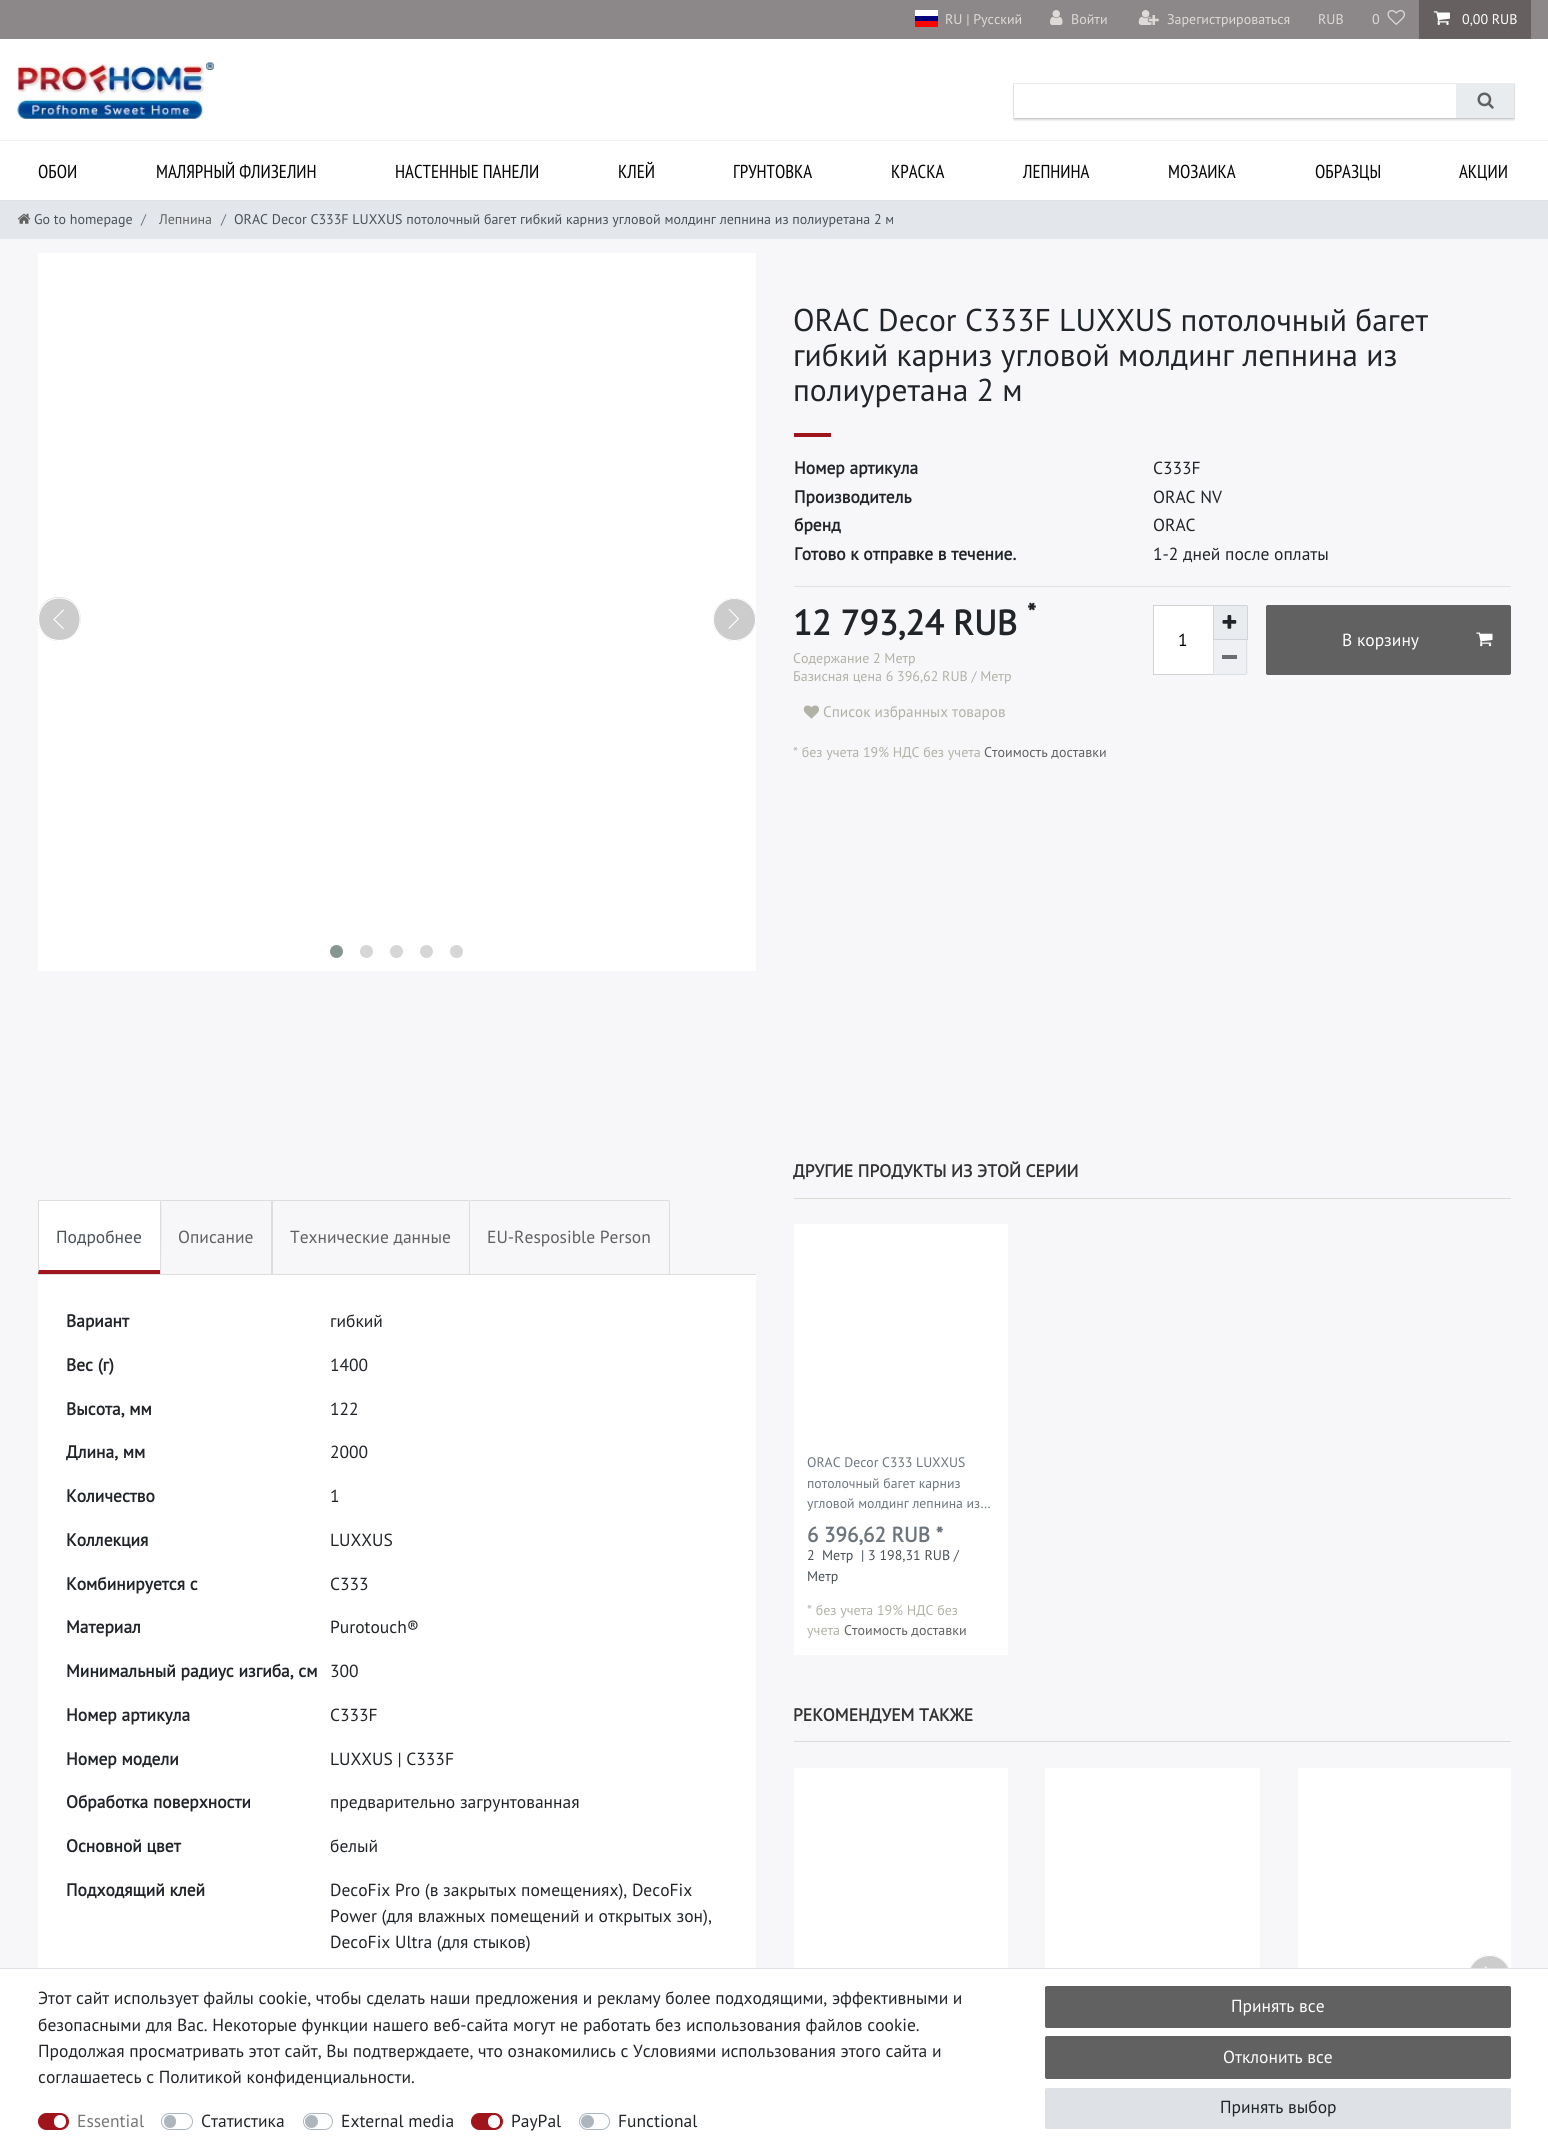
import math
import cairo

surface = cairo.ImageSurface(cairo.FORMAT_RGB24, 1548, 2154)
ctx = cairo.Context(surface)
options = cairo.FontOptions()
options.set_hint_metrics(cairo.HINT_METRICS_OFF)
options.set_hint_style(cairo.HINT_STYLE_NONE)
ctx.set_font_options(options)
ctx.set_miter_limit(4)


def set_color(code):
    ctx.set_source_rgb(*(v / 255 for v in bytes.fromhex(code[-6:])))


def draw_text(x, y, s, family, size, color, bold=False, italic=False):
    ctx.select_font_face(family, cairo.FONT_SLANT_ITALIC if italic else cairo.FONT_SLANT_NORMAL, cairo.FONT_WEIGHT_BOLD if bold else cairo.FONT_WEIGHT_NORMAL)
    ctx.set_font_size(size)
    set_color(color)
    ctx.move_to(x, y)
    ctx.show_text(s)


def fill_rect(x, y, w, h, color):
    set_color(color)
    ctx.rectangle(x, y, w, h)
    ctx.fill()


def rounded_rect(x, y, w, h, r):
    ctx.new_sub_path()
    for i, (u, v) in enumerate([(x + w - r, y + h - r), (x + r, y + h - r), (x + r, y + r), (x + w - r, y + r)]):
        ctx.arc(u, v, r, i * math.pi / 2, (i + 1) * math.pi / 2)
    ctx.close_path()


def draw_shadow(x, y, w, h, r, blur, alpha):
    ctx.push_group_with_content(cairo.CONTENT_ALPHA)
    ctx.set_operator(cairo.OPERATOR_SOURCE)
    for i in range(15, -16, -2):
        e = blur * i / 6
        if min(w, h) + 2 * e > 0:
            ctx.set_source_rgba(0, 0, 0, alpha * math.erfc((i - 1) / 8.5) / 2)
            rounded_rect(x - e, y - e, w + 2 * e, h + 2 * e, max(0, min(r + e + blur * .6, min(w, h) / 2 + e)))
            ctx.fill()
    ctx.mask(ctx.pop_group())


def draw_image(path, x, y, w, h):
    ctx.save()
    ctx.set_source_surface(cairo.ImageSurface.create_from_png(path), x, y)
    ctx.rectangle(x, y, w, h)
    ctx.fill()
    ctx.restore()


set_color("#f7f7f9")
ctx.paint()
fill_rect(0, 39, 1548, 101, "#ffffff")
fill_rect(0, 0, 1548, 39, "#8c8889")
fill_rect(915, 10, 23, 6, "#ffffff")
fill_rect(915, 16, 23, 5, "#01017e")
fill_rect(915, 21, 23, 6, "#fe0101")
draw_text(945, 24, "RU | Русский", "PT Sans", 14, "#dcdbd8")
draw_image("assets/img1.png", 1050, 10, 13, 15)
draw_text(1071, 24, "Войти", "PT Sans", 14, "#dcdbd8")
draw_image("assets/img2.png", 1138, 10, 21, 15)
draw_text(1167, 24, "Зарегистрироваться", "PT Sans", 14, "#dcdbd8")
draw_text(1318, 24, "RUB", "PT Sans", 14, "#dcdbd8")
draw_text(1372, 24, "0", "PT Sans", 14, "#dcdbd8")
draw_image("assets/img3.png", 1387, 10, 18, 15)
fill_rect(1419, 0, 112, 39, "#666060")
draw_image("assets/img4.png", 1433, 11, 17, 14)
draw_text(1462, 24, "0,00 RUB", "PT Sans", 14, "#ffffff")
ctx.rectangle(1013.5, 83.5, 501, 35)
set_color("#ebebeb")
ctx.set_line_width(1)
ctx.stroke()
set_color("#000000")
draw_shadow(1014, 86, 500, 34, 0, 1, 0.16)
fill_rect(1014, 85, 442, 33, "#ffffff")
fill_rect(1456, 84, 58, 34, "#e9ecef")
draw_image("assets/img5.png", 1477, 92, 17, 17)
fill_rect(0, 141, 1548, 59, "#ffffff")
fill_rect(0, 200, 1548, 1, "#dee2e6")
fill_rect(0, 140, 1548, 1, "#efefef")
draw_image("assets/img6.png", 16, 62, 198, 57)
draw_text(38, 178, "ОБОИ", "PT Sans Narrow", 18.75, "#060606")
draw_text(156, 178, "МАЛЯРНЫЙ ФЛИЗЕЛИН", "PT Sans Narrow", 18.75, "#060606")
draw_text(395, 178, "НАСТЕННЫЕ ПАНЕЛИ", "PT Sans Narrow", 18.75, "#060606")
draw_text(618, 178, "КЛЕЙ", "PT Sans Narrow", 18.75, "#060606")
draw_text(733, 178, "ГРУНТОВКА", "PT Sans Narrow", 18.75, "#060606")
draw_text(891, 178, "КРАСКА", "PT Sans Narrow", 18.75, "#060606")
draw_text(1023, 178, "ЛЕПНИНА", "PT Sans Narrow", 18.75, "#060606")
draw_text(1168, 178, "МОЗАИКА", "PT Sans Narrow", 18.75, "#060606")
draw_text(1315, 178, "ОБРАЗЦЫ", "PT Sans Narrow", 18.75, "#060606")
draw_text(1459, 178, "АКЦИИ", "PT Sans Narrow", 18.75, "#060606")
fill_rect(0, 201, 1548, 38, "#e3e7eb")
draw_image("assets/img7.png", 17, 213, 14, 11)
draw_text(34, 224, "Go to homepage", "PT Sans", 14, "#495057")
draw_text(141, 224, "/", "PT Sans", 14, "#6c757d")
draw_text(159, 224, "Лепнина", "PT Sans", 14, "#616161")
draw_text(221, 224, "/", "PT Sans", 14, "#6c757d")
draw_text(234, 224, "ORAC Decor C333F LUXXUS потолочный багет гибкий карниз угловой молдинг лепнина из полиуретана 2 м", "PT Sans", 14, "#495057")
fill_rect(38, 253, 718, 718, "#ffffff")
set_color("#cccccc")
ctx.new_path()
ctx.move_to(59, 641)
ctx.curve_to(31, 641, 31, 597, 59, 597)
ctx.curve_to(88, 597, 88, 641, 59, 641)
ctx.close_path()
ctx.fill()
draw_image("assets/img8.png", 53, 609, 11, 20)
ctx.new_path()
ctx.move_to(59.5, 640.5)
ctx.curve_to(31.5, 640.5, 31.5, 598, 59.5, 598)
ctx.curve_to(87, 598, 87, 640.5, 59.5, 640.5)
ctx.close_path()
set_color("#ffffff")
ctx.set_line_width(1.2)
ctx.stroke()
set_color("#cccccc")
ctx.arc(734.5, 619.5, 21.5, 0, 2 * math.pi)
ctx.fill()
draw_image("assets/img9.png", 728, 609, 11, 20)
ctx.arc(734.5, 619.5, 21, 0, 2 * math.pi)
set_color("#ffffff")
ctx.set_line_width(1)
ctx.stroke()
set_color("#869791")
ctx.arc(336.5, 951.5, 6.5, 0, 2 * math.pi)
ctx.fill()
set_color("#d6d6d6")
ctx.arc(366.5, 951.5, 6.5, 0, 2 * math.pi)
ctx.fill()
ctx.arc(396.5, 951.5, 6.5, 0, 2 * math.pi)
ctx.fill()
ctx.arc(426.5, 951.5, 6.5, 0, 2 * math.pi)
ctx.fill()
ctx.arc(456.5, 951.5, 6.5, 0, 2 * math.pi)
ctx.fill()
draw_text(793, 331, "ORAC Decor C333F LUXXUS потолочный багет", "PT Sans", 31.5, "#212529")
draw_text(793, 366, "гибкий карниз угловой молдинг лепнина из", "PT Sans", 31.5, "#212529")
draw_text(793, 401, "полиуретана 2 м", "PT Sans", 31.5, "#212529")
fill_rect(794, 433, 37, 4, "#a0151b")
draw_text(794, 474, "Номер артикула", "PT Sans", 17.5, "#212529", bold=True)
draw_text(1153, 474, "C333F", "PT Sans", 17.5, "#212529")
draw_text(794, 503, "Производитель", "PT Sans", 17.5, "#212529", bold=True)
draw_text(1153, 503, "ORAC NV", "PT Sans", 17.5, "#212529")
draw_text(794, 531, "бренд", "PT Sans", 17.5, "#212529", bold=True)
draw_text(1153, 531, "ORAC", "PT Sans", 17.5, "#212529")
draw_text(794, 560, "Готово к отправке в течение.", "PT Sans", 17.5, "#212529", bold=True)
draw_text(1153, 560, "1-2 дней после оплаты", "PT Sans", 17.5, "#212529")
fill_rect(794, 586, 717, 1, "#dee2e6")
draw_text(1027, 622, "*", "PT Sans", 26, "#212529", bold=True)
draw_text(793, 635, "12 793,24 RUB", "PT Sans", 35, "#212529", bold=True)
draw_text(793, 663, "Содержание 2 Метр", "PT Sans", 14, "#b2b1a7")
draw_text(793, 681, "Базисная цена 6 396,62 RUB / Метр", "PT Sans", 14, "#b2b1a7")
fill_rect(1154, 606, 59, 68, "#ffffff")
fill_rect(1153, 605, 60, 1, "#ced4da")
fill_rect(1153, 674, 60, 1, "#ced4da")
fill_rect(1153, 605, 1, 70, "#ced4da")
draw_text(1178, 646, "1", "PT Sans", 17.5, "#000000")
set_color("#e9ecef")
ctx.new_path()
ctx.move_to(1213.5, 605.5)
ctx.line_to(1246, 605.5)
ctx.curve_to(1247, 605.5, 1247.5, 606, 1247.5, 607)
ctx.line_to(1247.5, 639.5)
ctx.line_to(1213.5, 639.5)
ctx.close_path()
ctx.fill_preserve()
set_color("#ced4da")
ctx.stroke()
draw_image("assets/img10.png", 1222, 615, 15, 14)
set_color("#eef0f3")
ctx.new_path()
ctx.move_to(1213, 640)
ctx.line_to(1248, 640)
ctx.line_to(1248, 673)
ctx.curve_to(1248, 674, 1247, 675, 1246, 675)
ctx.line_to(1213, 675)
ctx.close_path()
ctx.fill()
fill_rect(1246, 640, 1, 34, "#dce0e5")
fill_rect(1213, 674, 33, 1, "#dce0e5")
fill_rect(1213, 640, 1, 35, "#dce0e5")
fill_rect(1222, 655, 15, 4, "#696c70")
set_color("#616161")
rounded_rect(1266.5, 605.5, 244, 69, 1.5)
ctx.fill_preserve()
ctx.stroke()
draw_text(1342, 646, "В корзину", "PT Sans", 17.5, "#ffffff")
draw_image("assets/img11.png", 1476, 632, 17, 15)
draw_image("assets/img12.png", 803, 705, 16, 14)
draw_text(823, 717, "Список избранных товаров", "PT Sans", 15.25, "#b2b1a7")
draw_text(793, 757, "* без учета 19% НДС без учета", "PT Sans", 14, "#b2b1a7")
draw_text(984, 757, "Стоимость доставки", "PT Sans", 14, "#616161")
fill_rect(38, 1274, 718, 1, "#dddddd")
set_color("#ffffff")
ctx.new_path()
ctx.move_to(39.5, 1201)
ctx.line_to(159.5, 1201)
ctx.curve_to(160, 1201, 160, 1201, 160, 1201.5)
ctx.line_to(160, 1270)
ctx.line_to(39, 1270)
ctx.line_to(39, 1201.5)
ctx.curve_to(39, 1201, 39, 1201, 39.5, 1201)
ctx.close_path()
ctx.fill()
set_color("#dddddd")
ctx.new_path()
ctx.move_to(39, 1200)
ctx.line_to(38, 1201)
ctx.line_to(39, 1202)
ctx.line_to(39, 1201)
ctx.line_to(160, 1201)
ctx.line_to(161, 1201)
ctx.line_to(160, 1200)
ctx.close_path()
ctx.fill()
ctx.new_path()
ctx.move_to(161, 1201)
ctx.curve_to(162, 1203, 161, 1265, 161, 1273)
ctx.line_to(160, 1270)
ctx.line_to(160, 1201)
ctx.close_path()
ctx.fill()
set_color("#a0151b")
ctx.new_path()
ctx.move_to(38, 1274)
ctx.line_to(39, 1269)
ctx.line_to(39, 1270)
ctx.line_to(160, 1270)
ctx.line_to(161, 1273)
ctx.line_to(161, 1274)
ctx.close_path()
ctx.fill()
set_color("#dddddd")
ctx.new_path()
ctx.move_to(38, 1201)
ctx.line_to(38, 1272)
ctx.line_to(39, 1269)
ctx.line_to(39, 1202)
ctx.close_path()
ctx.fill()
draw_text(56, 1243, "Подробнее", "PT Sans", 17.5, "#495057")
ctx.new_path()
ctx.move_to(162, 1200.5)
ctx.line_to(271, 1200.5)
ctx.curve_to(272, 1200.5, 272.5, 1201, 272.5, 1202)
ctx.line_to(272.5, 1274.5)
ctx.line_to(160.5, 1274.5)
ctx.line_to(160.5, 1202)
ctx.curve_to(160.5, 1201, 161, 1200.5, 162, 1200.5)
ctx.close_path()
set_color("#dddddd")
ctx.stroke()
draw_text(178, 1243, "Описание", "PT Sans", 17.5, "#616161")
ctx.new_path()
ctx.move_to(273, 1200.5)
ctx.line_to(468, 1200.5)
ctx.curve_to(469, 1200.5, 469.5, 1201, 469.5, 1202)
ctx.line_to(469.5, 1274.5)
ctx.line_to(271.5, 1274.5)
ctx.line_to(271.5, 1202)
ctx.curve_to(271.5, 1201, 272, 1200.5, 273, 1200.5)
ctx.close_path()
set_color("#dddddd")
ctx.stroke()
draw_text(290, 1243, "Технические данные", "PT Sans", 17.5, "#616161")
ctx.new_path()
ctx.move_to(471, 1200.5)
ctx.line_to(668, 1200.5)
ctx.curve_to(669, 1200.5, 669.5, 1201, 669.5, 1202)
ctx.line_to(669.5, 1274.5)
ctx.line_to(469.5, 1274.5)
ctx.line_to(469.5, 1202)
ctx.curve_to(469.5, 1201, 470, 1200.5, 471, 1200.5)
ctx.close_path()
set_color("#dddddd")
ctx.stroke()
draw_text(487, 1243, "EU-Resposible Person", "PT Sans", 17.5, "#616161")
fill_rect(38, 1275, 718, 693, "#ffffff")
draw_text(66, 1327, "Вариант", "PT Sans", 17.5, "#212529", bold=True)
draw_text(330, 1327, "гибкий", "PT Sans", 17.5, "#212529")
draw_text(66, 1371, "Вес (г)", "PT Sans", 17.5, "#212529", bold=True)
draw_text(330, 1371, "1400", "PT Sans", 17.5, "#212529")
draw_text(66, 1415, "Высота, мм", "PT Sans", 17.5, "#212529", bold=True)
draw_text(330, 1415, "122", "PT Sans", 17.5, "#212529")
draw_text(66, 1458, "Длина, мм", "PT Sans", 17.5, "#212529", bold=True)
draw_text(330, 1458, "2000", "PT Sans", 17.5, "#212529")
draw_text(66, 1502, "Количество", "PT Sans", 17.5, "#212529", bold=True)
draw_text(330, 1502, "1", "PT Sans", 17.5, "#212529")
draw_text(66, 1546, "Коллекция", "PT Sans", 17.5, "#212529", bold=True)
draw_text(330, 1546, "LUXXUS", "PT Sans", 17.5, "#212529")
draw_text(66, 1590, "Комбинируется с", "PT Sans", 17.5, "#212529", bold=True)
draw_text(330, 1590, "C333", "PT Sans", 17.5, "#212529")
draw_text(66, 1633, "Материал", "PT Sans", 17.5, "#212529", bold=True)
draw_text(330, 1633, "Purotouch®", "PT Sans", 17.5, "#212529")
draw_text(66, 1677, "Минимальный радиус изгиба, см", "PT Sans", 17.5, "#212529", bold=True)
draw_text(330, 1677, "300", "PT Sans", 17.5, "#212529")
draw_text(66, 1721, "Номер артикула", "PT Sans", 17.5, "#212529", bold=True)
draw_text(330, 1721, "C333F", "PT Sans", 17.5, "#212529")
draw_text(66, 1765, "Номер модели", "PT Sans", 17.5, "#212529", bold=True)
draw_text(330, 1765, "LUXXUS | C333F", "PT Sans", 17.5, "#212529")
draw_text(66, 1808, "Обработка поверхности", "PT Sans", 17.5, "#212529", bold=True)
draw_text(330, 1808, "предварительно загрунтованная", "PT Sans", 17.5, "#212529")
draw_text(66, 1852, "Основной цвет", "PT Sans", 17.5, "#212529", bold=True)
draw_text(330, 1852, "белый", "PT Sans", 17.5, "#212529")
draw_text(66, 1896, "Подходящий клей", "PT Sans", 17.5, "#212529", bold=True)
draw_text(330, 1896, "DecoFix Pro (в закрытых помещениях), DecoFix", "PT Sans", 17.5, "#212529")
draw_text(330, 1922, "Power (для влажных помещений и открытых зон),", "PT Sans", 17.5, "#212529")
draw_text(330, 1948, "DecoFix Ultra (для стыков)", "PT Sans", 17.5, "#212529")
fill_rect(794, 1198, 717, 1, "#dcdbd8")
draw_text(793, 1177, "ДРУГИЕ ПРОДУКТЫ ИЗ ЭТОЙ СЕРИИ", "PT Sans", 17.5, "#333333", bold=True)
fill_rect(794, 1224, 214, 431, "#ffffff")
draw_text(807, 1467, "ORAC Decor C333 LUXXUS", "PT Sans", 13.75, "#6c757d")
draw_text(807, 1488, "потолочный багет карниз", "PT Sans", 13.75, "#6c757d")
draw_text(807, 1508, "угловой молдинг лепнина из…", "PT Sans", 13.75, "#6c757d")
draw_text(807, 1542, "6 396,62 RUB *", "PT Sans", 21, "#6c757d", bold=True)
draw_text(807, 1560, "2", "PT Sans", 14, "#495057")
draw_text(822, 1560, "Метр", "PT Sans", 14, "#495057")
draw_text(861, 1560, "| 3 198,31 RUB /", "PT Sans", 14, "#495057")
draw_text(807, 1581, "Метр", "PT Sans", 14, "#495057")
draw_text(807, 1615, "* без учета 19% НДС без", "PT Sans", 14, "#b2b1a7")
draw_text(807, 1635, "учета", "PT Sans", 14, "#b2b1a7")
draw_text(844, 1635, "Стоимость доставки", "PT Sans", 14, "#616161")
fill_rect(794, 1741, 717, 1, "#dcdbd8")
draw_text(793, 1721, "РЕКОМЕНДУЕМ ТАКЖЕ", "PT Sans", 17.5, "#333333", bold=True)
fill_rect(794, 1768, 214, 200, "#ffffff")
fill_rect(1045, 1768, 215, 200, "#ffffff")
fill_rect(1298, 1768, 213, 200, "#ffffff")
set_color("#cccccc")
rounded_rect(1468, 1955, 43, 44, 21.5)
ctx.fill()
draw_image("assets/img13.png", 1484, 1966, 4, 2)
rounded_rect(1468.5, 1955.5, 42, 43, 21)
set_color("#ffffff")
ctx.stroke()
fill_rect(0, 1969, 1548, 185, "#ffffff")
fill_rect(0, 1968, 1548, 1, "#dee2e6")
draw_text(38, 2004, "Этот сайт использует файлы cookie, чтобы сделать наши предложения и рекламу более подходящими, эффективными и", "PT Sans", 17.5, "#212529")
draw_text(38, 2031, "безопасными для Вас. Некоторые функции нашего веб-сайта могут не работать без использования файлов cookie.", "PT Sans", 17.5, "#212529")
draw_text(38, 2057, "Продолжая просматривать этот сайт, Вы подтверждаете, что ознакомились с Условиями использования этого сайта и", "PT Sans", 17.5, "#212529")
draw_text(38, 2083, "соглашаетесь с Политикой конфиденциальности.", "PT Sans", 17.5, "#212529")
set_color("#a0151b")
rounded_rect(38.5, 2113.5, 30, 16, 8)
ctx.fill_preserve()
ctx.stroke()
draw_text(77, 2127, "Essential", "PT Sans", 17.5, "#767676")
set_color("#ffffff")
rounded_rect(54, 2115, 12, 13, 6)
ctx.fill()
rounded_rect(161.5, 2113.5, 31, 16, 8)
set_color("#adb5bd")
ctx.stroke()
draw_text(201, 2127, "Статистика", "PT Sans", 17.5, "#212529")
set_color("#adb5bd")
rounded_rect(164, 2115, 12, 13, 6)
ctx.fill()
rounded_rect(303.5, 2113.5, 29, 16, 8)
ctx.stroke()
draw_text(341, 2127, "External media", "PT Sans", 17.5, "#212529")
set_color("#adb5bd")
ctx.new_path()
ctx.arc(311.5, 2121.5, 6.5, 0, 2 * math.pi)
ctx.fill()
set_color("#a0151b")
rounded_rect(471.5, 2113.5, 31, 16, 8)
ctx.fill_preserve()
ctx.stroke()
draw_text(511, 2127, "PayPal", "PT Sans", 17.5, "#212529")
set_color("#ffffff")
rounded_rect(488, 2115, 12, 13, 6)
ctx.fill()
rounded_rect(579.5, 2113.5, 30, 16, 8)
set_color("#adb5bd")
ctx.stroke()
draw_text(618, 2127, "Functional", "PT Sans", 17.5, "#212529")
set_color("#adb5bd")
ctx.new_path()
ctx.arc(587.5, 2121.5, 6.5, 0, 2 * math.pi)
ctx.fill()
set_color("#616161")
rounded_rect(1045.5, 1986.5, 465, 41, 1.5)
ctx.fill_preserve()
ctx.stroke()
draw_text(1231, 2012, "Принять все", "PT Sans", 17.5, "#ffffff")
set_color("#616161")
rounded_rect(1045.5, 2036.5, 465, 42, 1.5)
ctx.fill_preserve()
ctx.stroke()
draw_text(1223, 2063, "Отклонить все", "PT Sans", 17.5, "#ffffff")
set_color("#dee2e6")
rounded_rect(1045.5, 2088.5, 465, 40, 1.5)
ctx.fill_preserve()
ctx.stroke()
draw_text(1220, 2113, "Принять выбор", "PT Sans", 17.5, "#212529")
surface.write_to_png("output.png")
